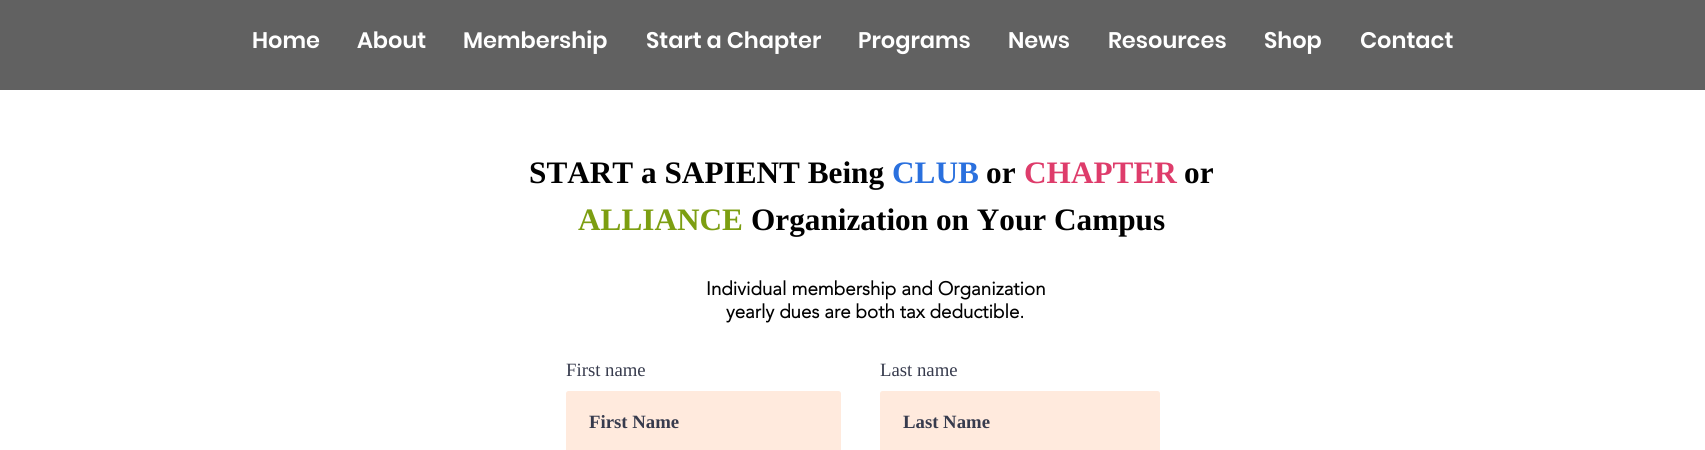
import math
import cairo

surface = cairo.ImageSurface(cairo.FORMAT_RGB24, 1705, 450)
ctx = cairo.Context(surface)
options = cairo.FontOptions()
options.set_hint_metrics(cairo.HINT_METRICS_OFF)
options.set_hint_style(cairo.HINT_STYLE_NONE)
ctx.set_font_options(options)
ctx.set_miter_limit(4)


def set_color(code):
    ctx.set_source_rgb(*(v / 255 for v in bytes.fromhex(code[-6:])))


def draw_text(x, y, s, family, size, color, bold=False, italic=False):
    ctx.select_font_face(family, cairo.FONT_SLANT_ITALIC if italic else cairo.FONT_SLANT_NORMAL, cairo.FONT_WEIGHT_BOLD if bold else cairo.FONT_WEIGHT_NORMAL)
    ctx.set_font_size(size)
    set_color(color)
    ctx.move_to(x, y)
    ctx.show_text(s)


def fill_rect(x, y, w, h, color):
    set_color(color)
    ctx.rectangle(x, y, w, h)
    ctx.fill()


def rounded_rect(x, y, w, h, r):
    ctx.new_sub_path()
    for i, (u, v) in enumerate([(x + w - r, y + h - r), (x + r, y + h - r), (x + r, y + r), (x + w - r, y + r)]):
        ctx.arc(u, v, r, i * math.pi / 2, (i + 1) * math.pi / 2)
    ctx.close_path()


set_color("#ffffff")
ctx.paint()
fill_rect(0, 0, 1705, 90, "#616161")
draw_text(252, 48, "Home", "Poppins SemiBold", 22.5, "#ffffff")
draw_text(357, 48, "About", "Poppins SemiBold", 22.5, "#ffffff")
draw_text(463, 48, "Membership", "Poppins SemiBold", 22.5, "#ffffff")
draw_text(646, 48, "Start a Chapter", "Poppins SemiBold", 22.5, "#ffffff")
draw_text(858, 48, "Programs", "Poppins SemiBold", 22.5, "#ffffff")
draw_text(1008, 48, "News", "Poppins SemiBold", 22.5, "#ffffff")
draw_text(1108, 48, "Resources", "Poppins SemiBold", 22.5, "#ffffff")
draw_text(1264, 48, "Shop", "Poppins SemiBold", 22.5, "#ffffff")
draw_text(1360, 48, "Contact", "Poppins SemiBold", 22.5, "#ffffff")
draw_text(529, 183, "START a SAPIENT Being", "Liberation Serif", 31.25, "#000000", bold=True)
draw_text(892, 183, "CLUB", "Liberation Serif", 31.25, "#2a70de", bold=True)
draw_text(986, 183, "or", "Liberation Serif", 31.25, "#000000", bold=True)
draw_text(1024, 183, "CHAPTER", "Liberation Serif", 31.25, "#de3c6b", bold=True)
draw_text(1184, 183, "or", "Liberation Serif", 31.25, "#000000", bold=True)
draw_text(578, 230, "ALLIANCE", "Liberation Serif", 31.25, "#7c9e11", bold=True)
draw_text(751, 230, "Organization on Your Campus", "Liberation Serif", 31.25, "#000000", bold=True)
draw_text(706, 295, "Individual membership and Organization", "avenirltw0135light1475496", 18.75, "#000000", bold=True)
draw_text(726, 318, "yearly dues are both tax deductible.", "avenirltw0135light1475496", 18.75, "#000000", bold=True)
draw_text(566, 376, "First name", "Liberation Serif", 18.75, "#373b4d")
set_color("#ffeadd")
rounded_rect(566, 391, 275, 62, 2.5)
ctx.fill()
draw_text(589, 428, "First Name", "Liberation Serif", 18.75, "#373b4d", bold=True)
draw_text(880, 376, "Last name", "Liberation Serif", 18.75, "#373b4d")
set_color("#ffeadd")
rounded_rect(880, 391, 280, 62, 2.5)
ctx.fill()
draw_text(903, 428, "Last Name", "Liberation Serif", 18.75, "#373b4d", bold=True)
surface.write_to_png("output.png")
